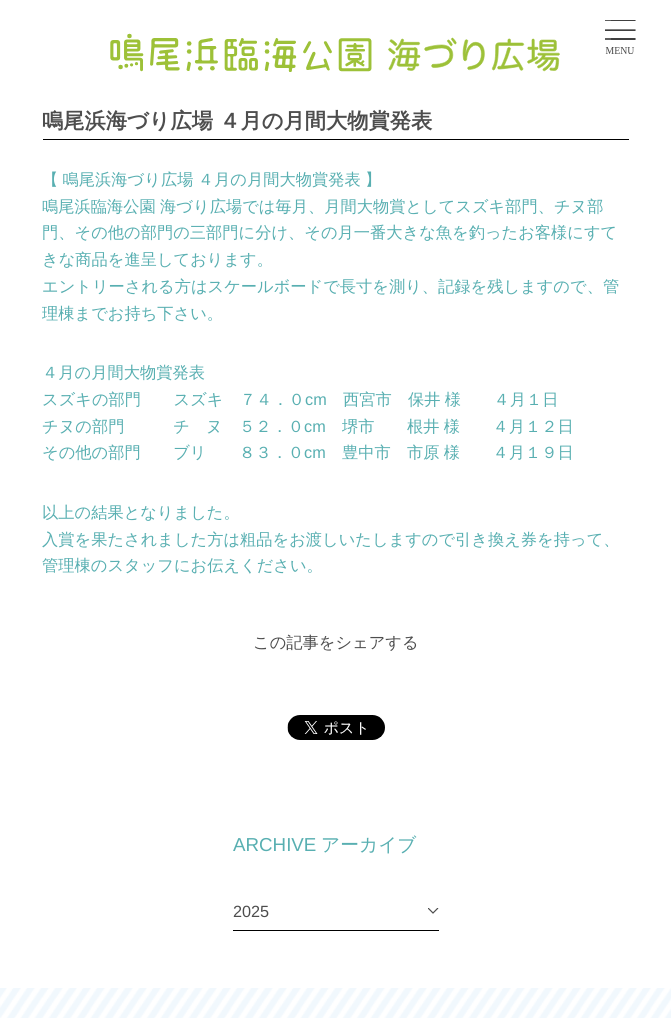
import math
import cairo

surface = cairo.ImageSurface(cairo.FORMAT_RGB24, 671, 1018)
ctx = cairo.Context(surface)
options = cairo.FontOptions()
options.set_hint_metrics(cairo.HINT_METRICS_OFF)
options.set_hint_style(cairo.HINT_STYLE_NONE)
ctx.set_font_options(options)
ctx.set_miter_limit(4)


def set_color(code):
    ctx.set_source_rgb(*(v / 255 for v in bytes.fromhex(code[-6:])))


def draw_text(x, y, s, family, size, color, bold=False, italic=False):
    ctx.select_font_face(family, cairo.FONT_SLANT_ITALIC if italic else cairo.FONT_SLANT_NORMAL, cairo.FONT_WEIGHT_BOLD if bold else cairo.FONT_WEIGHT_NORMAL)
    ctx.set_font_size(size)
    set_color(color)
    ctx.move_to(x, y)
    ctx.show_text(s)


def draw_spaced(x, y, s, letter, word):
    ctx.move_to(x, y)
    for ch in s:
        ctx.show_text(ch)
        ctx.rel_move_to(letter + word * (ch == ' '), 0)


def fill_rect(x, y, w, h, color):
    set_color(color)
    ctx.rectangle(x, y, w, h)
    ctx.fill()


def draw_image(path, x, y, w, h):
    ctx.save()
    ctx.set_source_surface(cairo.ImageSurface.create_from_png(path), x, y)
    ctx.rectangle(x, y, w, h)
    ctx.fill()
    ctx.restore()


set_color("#ffffff")
ctx.paint()
draw_image("assets/img1.png", 0, 988, 671, 30)
draw_image("assets/img2.png", 110, 33, 450, 39)
draw_image("assets/img3.png", 605, 20, 31, 34)
fill_rect(43, 139, 586, 1, "#000000")
draw_text(42, 128, "鳴尾浜海づり広場 ４月の月間大物賞発表", "WenQuanYi Zen Hei", 21.25, "#4d4d4d", bold=True)
ctx.select_font_face("WenQuanYi Zen Hei Medium")
ctx.set_font_size(16.25)
set_color("#58afb1")
draw_spaced(42, 185, "【 鳴尾浜海づり広場 ４月の月間大物賞発表 】", 0, -0.5)
draw_spaced(42, 212, "鳴尾浜臨海公園 海づり広場では毎月、月間大物賞としてスズキ部門、チヌ部", 0, -0.5)
draw_text(42, 238, "門、その他の部門の三部門に分け、その月一番大きな魚を釣ったお客様にすて", "WenQuanYi Zen Hei Medium", 16.25, "#58afb1")
draw_text(42, 265, "きな商品を進呈しております。", "WenQuanYi Zen Hei Medium", 16.25, "#58afb1")
draw_text(42, 292, "エントリーされる方はスケールボードで長寸を測り、記録を残しますので、管", "WenQuanYi Zen Hei Medium", 16.25, "#58afb1")
draw_text(42, 319, "理棟までお持ち下さい。", "WenQuanYi Zen Hei Medium", 16.25, "#58afb1")
draw_text(42, 378, "４月の月間大物賞発表", "WenQuanYi Zen Hei Medium", 16.25, "#58afb1")
draw_text(42, 405, "スズキの部門　　スズキ　７４．０", "WenQuanYi Zen Hei Medium", 16.25, "#58afb1")
draw_text(305, 405, "cm", "Liberation Sans", 16.25, "#58afb1")
ctx.select_font_face("WenQuanYi Zen Hei Medium")
draw_spaced(343, 405, "西宮市　保井 様　　４月１日", 0, -0.5)
draw_text(42, 432, "チヌの部門　　　チ　ヌ　５２．０", "WenQuanYi Zen Hei Medium", 16.25, "#58afb1")
draw_text(304, 432, "cm", "Liberation Sans", 16.25, "#58afb1")
ctx.select_font_face("WenQuanYi Zen Hei Medium")
draw_spaced(342, 432, "堺市　　根井 様　　４月１２日", 0, -0.5)
draw_text(42, 458, "その他の部門　　ブリ　　８３．０", "WenQuanYi Zen Hei Medium", 16.25, "#58afb1")
draw_text(304, 458, "cm", "Liberation Sans", 16.25, "#58afb1")
ctx.select_font_face("WenQuanYi Zen Hei Medium")
draw_spaced(342, 458, "豊中市　市原 様　　４月１９日", 0, -0.5)
draw_text(42, 518, "以上の結果となりました。", "WenQuanYi Zen Hei Medium", 16.25, "#58afb1")
draw_text(42, 545, "入賞を果たされました方は粗品をお渡しいたしますので引き換え券を持って、", "WenQuanYi Zen Hei Medium", 16.25, "#58afb1")
draw_text(42, 571, "管理棟のスタッフにお伝えください。", "WenQuanYi Zen Hei Medium", 16.25, "#58afb1")
draw_text(253, 648, "この記事をシェアする", "WenQuanYi Zen Hei Medium", 16.25, "#4d4d4d")
draw_image("assets/img4.png", 287, 715, 98, 25)
draw_text(233, 851, "ARCHIVE", "Liberation Sans", 18.75, "#58afb1")
draw_text(321, 851, "アーカイブ", "WenQuanYi Zen Hei Medium", 18.75, "#58afb1")
ctx.save()
ctx.rectangle(428, 908, 11, 6)
ctx.clip()
ctx.new_path()
ctx.move_to(428, 908)
ctx.line_to(433, 913)
ctx.line_to(438, 908)
set_color("#4d4d4d")
ctx.set_line_width(1.2)
ctx.stroke()
ctx.restore()
fill_rect(233, 930, 206, 1, "#000000")
draw_text(233, 917, "2025", "Liberation Sans", 16.25, "#4d4d4d")
surface.write_to_png("output.png")
